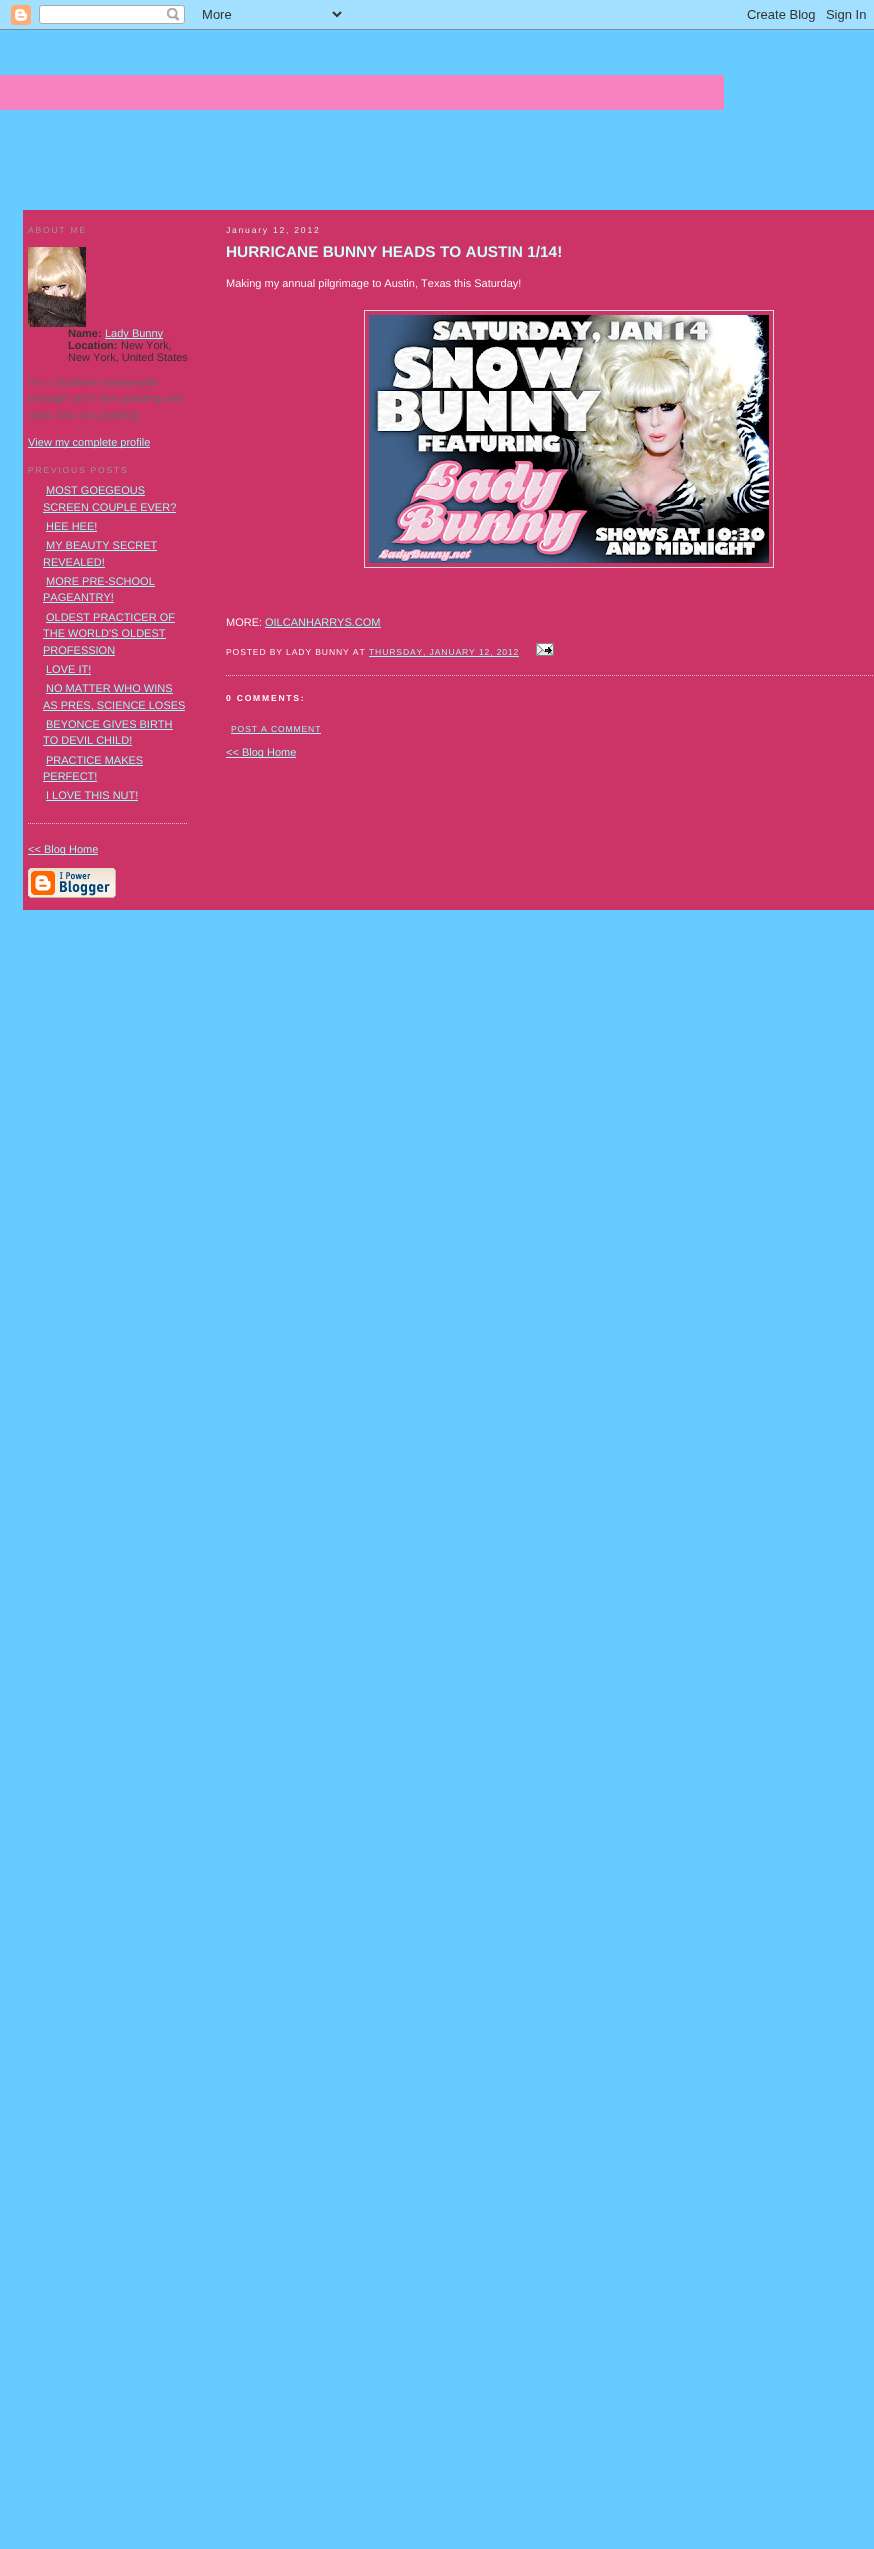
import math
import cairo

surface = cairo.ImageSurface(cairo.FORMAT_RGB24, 874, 2549)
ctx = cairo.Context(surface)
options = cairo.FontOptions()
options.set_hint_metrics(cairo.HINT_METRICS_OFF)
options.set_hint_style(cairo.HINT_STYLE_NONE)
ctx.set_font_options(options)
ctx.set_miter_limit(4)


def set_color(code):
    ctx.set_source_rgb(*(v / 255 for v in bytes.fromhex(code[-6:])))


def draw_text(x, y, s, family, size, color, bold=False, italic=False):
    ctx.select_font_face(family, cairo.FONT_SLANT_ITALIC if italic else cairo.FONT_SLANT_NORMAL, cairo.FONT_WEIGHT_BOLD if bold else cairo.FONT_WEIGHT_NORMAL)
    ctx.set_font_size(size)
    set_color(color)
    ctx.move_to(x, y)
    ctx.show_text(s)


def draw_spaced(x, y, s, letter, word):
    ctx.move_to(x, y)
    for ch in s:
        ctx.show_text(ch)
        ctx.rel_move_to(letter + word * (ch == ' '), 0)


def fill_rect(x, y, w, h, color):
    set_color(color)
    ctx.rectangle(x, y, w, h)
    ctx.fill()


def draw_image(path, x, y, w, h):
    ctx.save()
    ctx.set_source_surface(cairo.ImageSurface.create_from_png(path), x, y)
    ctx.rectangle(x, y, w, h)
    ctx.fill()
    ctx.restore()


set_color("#66ccff")
ctx.paint()
draw_image("assets/img1.png", 0, 0, 874, 30)
fill_rect(0, 75, 724, 35, "#f881bf")
fill_rect(23, 210, 851, 700, "#cc3366")
ctx.select_font_face("Liberation Sans")
ctx.set_font_size(8.6)
set_color("#999999")
draw_spaced(28, 233, "ABOUT ME", 1.75, 0)
draw_image("assets/img2.png", 28, 247, 58, 80)
draw_text(68, 337, "Name:", "Liberation Sans", 11, "#333333", bold=True)
fill_rect(105, 338, 58, 1, "#99ffff")
draw_text(105, 337, "Lady Bunny", "Liberation Sans", 11, "#99ffff")
draw_text(68, 349, "Location:", "Liberation Sans", 11, "#333333", bold=True)
draw_text(121, 349, "New York,", "Liberation Sans", 11, "#333333")
draw_text(68, 361, "New York, United States", "Liberation Sans", 11, "#333333")
draw_text(28, 386, "I'm a Southern transvestite", "Liberation Sans", 11, "#666666")
draw_text(28, 402, "showgirl and I love pudding and", "Liberation Sans", 11, "#666666")
draw_text(28, 419, "owls! And owl pudding!", "Liberation Sans", 11, "#666666")
fill_rect(28, 447, 122, 1, "#99ffff")
draw_text(28, 446, "View my complete profile", "Liberation Sans", 11, "#99ffff")
ctx.set_font_size(8.6)
set_color("#999999")
draw_spaced(28, 473, "PREVIOUS POSTS", 1.75, 0)
ctx.new_path()
ctx.move_to(28, 823.5)
ctx.line_to(188, 823.5)
set_color("#cccccc")
ctx.set_line_width(1)
ctx.set_dash([1, 1])
ctx.stroke()
draw_text(46, 494, "MOST GOEGEOUS", "Liberation Sans", 11, "#99ffff")
fill_rect(46, 495, 99, 1, "#99ffff")
draw_text(43, 511, "SCREEN COUPLE EVER?", "Liberation Sans", 11, "#99ffff")
fill_rect(43, 512, 133, 1, "#99ffff")
draw_text(46, 530, "HEE HEE!", "Liberation Sans", 11, "#99ffff")
fill_rect(46, 531, 51, 1, "#99ffff")
draw_text(46, 549, "MY BEAUTY SECRET", "Liberation Sans", 11, "#99ffff")
fill_rect(46, 550, 111, 1, "#99ffff")
draw_text(43, 566, "REVEALED!", "Liberation Sans", 11, "#99ffff")
fill_rect(43, 567, 62, 1, "#99ffff")
draw_text(46, 585, "MORE PRE-SCHOOL", "Liberation Sans", 11, "#99ffff")
fill_rect(46, 586, 109, 1, "#99ffff")
draw_text(43, 601, "PAGEANTRY!", "Liberation Sans", 11, "#99ffff")
fill_rect(43, 602, 71, 1, "#99ffff")
draw_text(46, 621, "OLDEST PRACTICER OF", "Liberation Sans", 11, "#99ffff")
fill_rect(46, 622, 129, 1, "#99ffff")
draw_text(43, 637, "THE WORLD'S OLDEST", "Liberation Sans", 11, "#99ffff")
fill_rect(43, 638, 123, 1, "#99ffff")
draw_text(43, 654, "PROFESSION", "Liberation Sans", 11, "#99ffff")
fill_rect(43, 655, 72, 1, "#99ffff")
draw_text(46, 673, "LOVE IT!", "Liberation Sans", 11, "#99ffff")
fill_rect(46, 674, 45, 1, "#99ffff")
draw_text(46, 692, "NO MATTER WHO WINS", "Liberation Sans", 11, "#99ffff")
fill_rect(46, 693, 127, 1, "#99ffff")
fill_rect(43, 710, 142, 1, "#99ffff")
draw_text(43, 709, "AS PRES, SCIENCE LOSES", "Liberation Sans", 11, "#99ffff")
draw_text(46, 728, "BEYONCE GIVES BIRTH", "Liberation Sans", 11, "#99ffff")
fill_rect(46, 729, 127, 1, "#99ffff")
draw_text(43, 744, "TO DEVIL CHILD!", "Liberation Sans", 11, "#99ffff")
fill_rect(43, 745, 89, 1, "#99ffff")
draw_text(46, 764, "PRACTICE MAKES", "Liberation Sans", 11, "#99ffff")
fill_rect(46, 765, 97, 1, "#99ffff")
draw_text(43, 780, "PERFECT!", "Liberation Sans", 11, "#99ffff")
fill_rect(43, 781, 54, 1, "#99ffff")
draw_text(46, 799, "I LOVE THIS NUT!", "Liberation Sans", 11, "#99ffff")
fill_rect(46, 800, 92, 1, "#99ffff")
fill_rect(28, 854, 70, 1, "#99ffff")
draw_text(28, 853, "<< Blog Home", "Liberation Sans", 11, "#99ffff")
draw_image("assets/img3.png", 28, 868, 88, 30)
ctx.set_font_size(8.6)
set_color("#ccffff")
draw_spaced(226, 233, "January 12, 2012", 1.75, 0)
ctx.new_path()
ctx.move_to(226, 675.5)
ctx.line_to(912, 675.5)
set_color("#cccccc")
ctx.stroke()
draw_text(226, 257, "HURRICANE BUNNY HEADS TO AUSTIN 1/14!", "Liberation Sans", 15.4, "#ccffff", bold=True)
draw_text(226, 287, "Making my annual pilgrimage to Austin, Texas this Saturday!", "Liberation Sans", 11, "#ffffff")
ctx.rectangle(364.5, 310.5, 409, 257)
set_color("#dddddd")
ctx.set_dash([])
ctx.stroke()
draw_image("assets/img4.png", 369, 315, 400, 248)
draw_text(226, 626, "MORE:", "Liberation Sans", 11, "#ffffff")
draw_text(265, 626, "OILCANHARRYS.COM", "Liberation Sans", 11, "#99ffff")
fill_rect(265, 627, 116, 1, "#99ffff")
ctx.set_font_size(8.6)
set_color("#ffffff")
draw_spaced(226, 655, "POSTED BY LADY BUNNY AT", 0.85, 0)
fill_rect(369, 656, 150, 1, "#99ffff")
draw_spaced(369, 655, "THURSDAY, JANUARY 12, 2012", 0.85, 0)
draw_image("assets/img5.png", 536, 643, 18, 13)
ctx.select_font_face("Liberation Sans", cairo.FONT_SLANT_NORMAL, cairo.FONT_WEIGHT_BOLD)
set_color("#ffffff")
draw_spaced(226, 701, "0 COMMENTS:", 1.75, 0)
ctx.select_font_face("Liberation Sans")
set_color("#99ffff")
draw_spaced(231, 732, "POST A COMMENT", 0.85, 0)
fill_rect(231, 733, 90, 1, "#99ffff")
fill_rect(226, 757, 70, 1, "#99ffff")
draw_text(226, 756, "<< Blog Home", "Liberation Sans", 11, "#99ffff")
surface.write_to_png("output.png")
